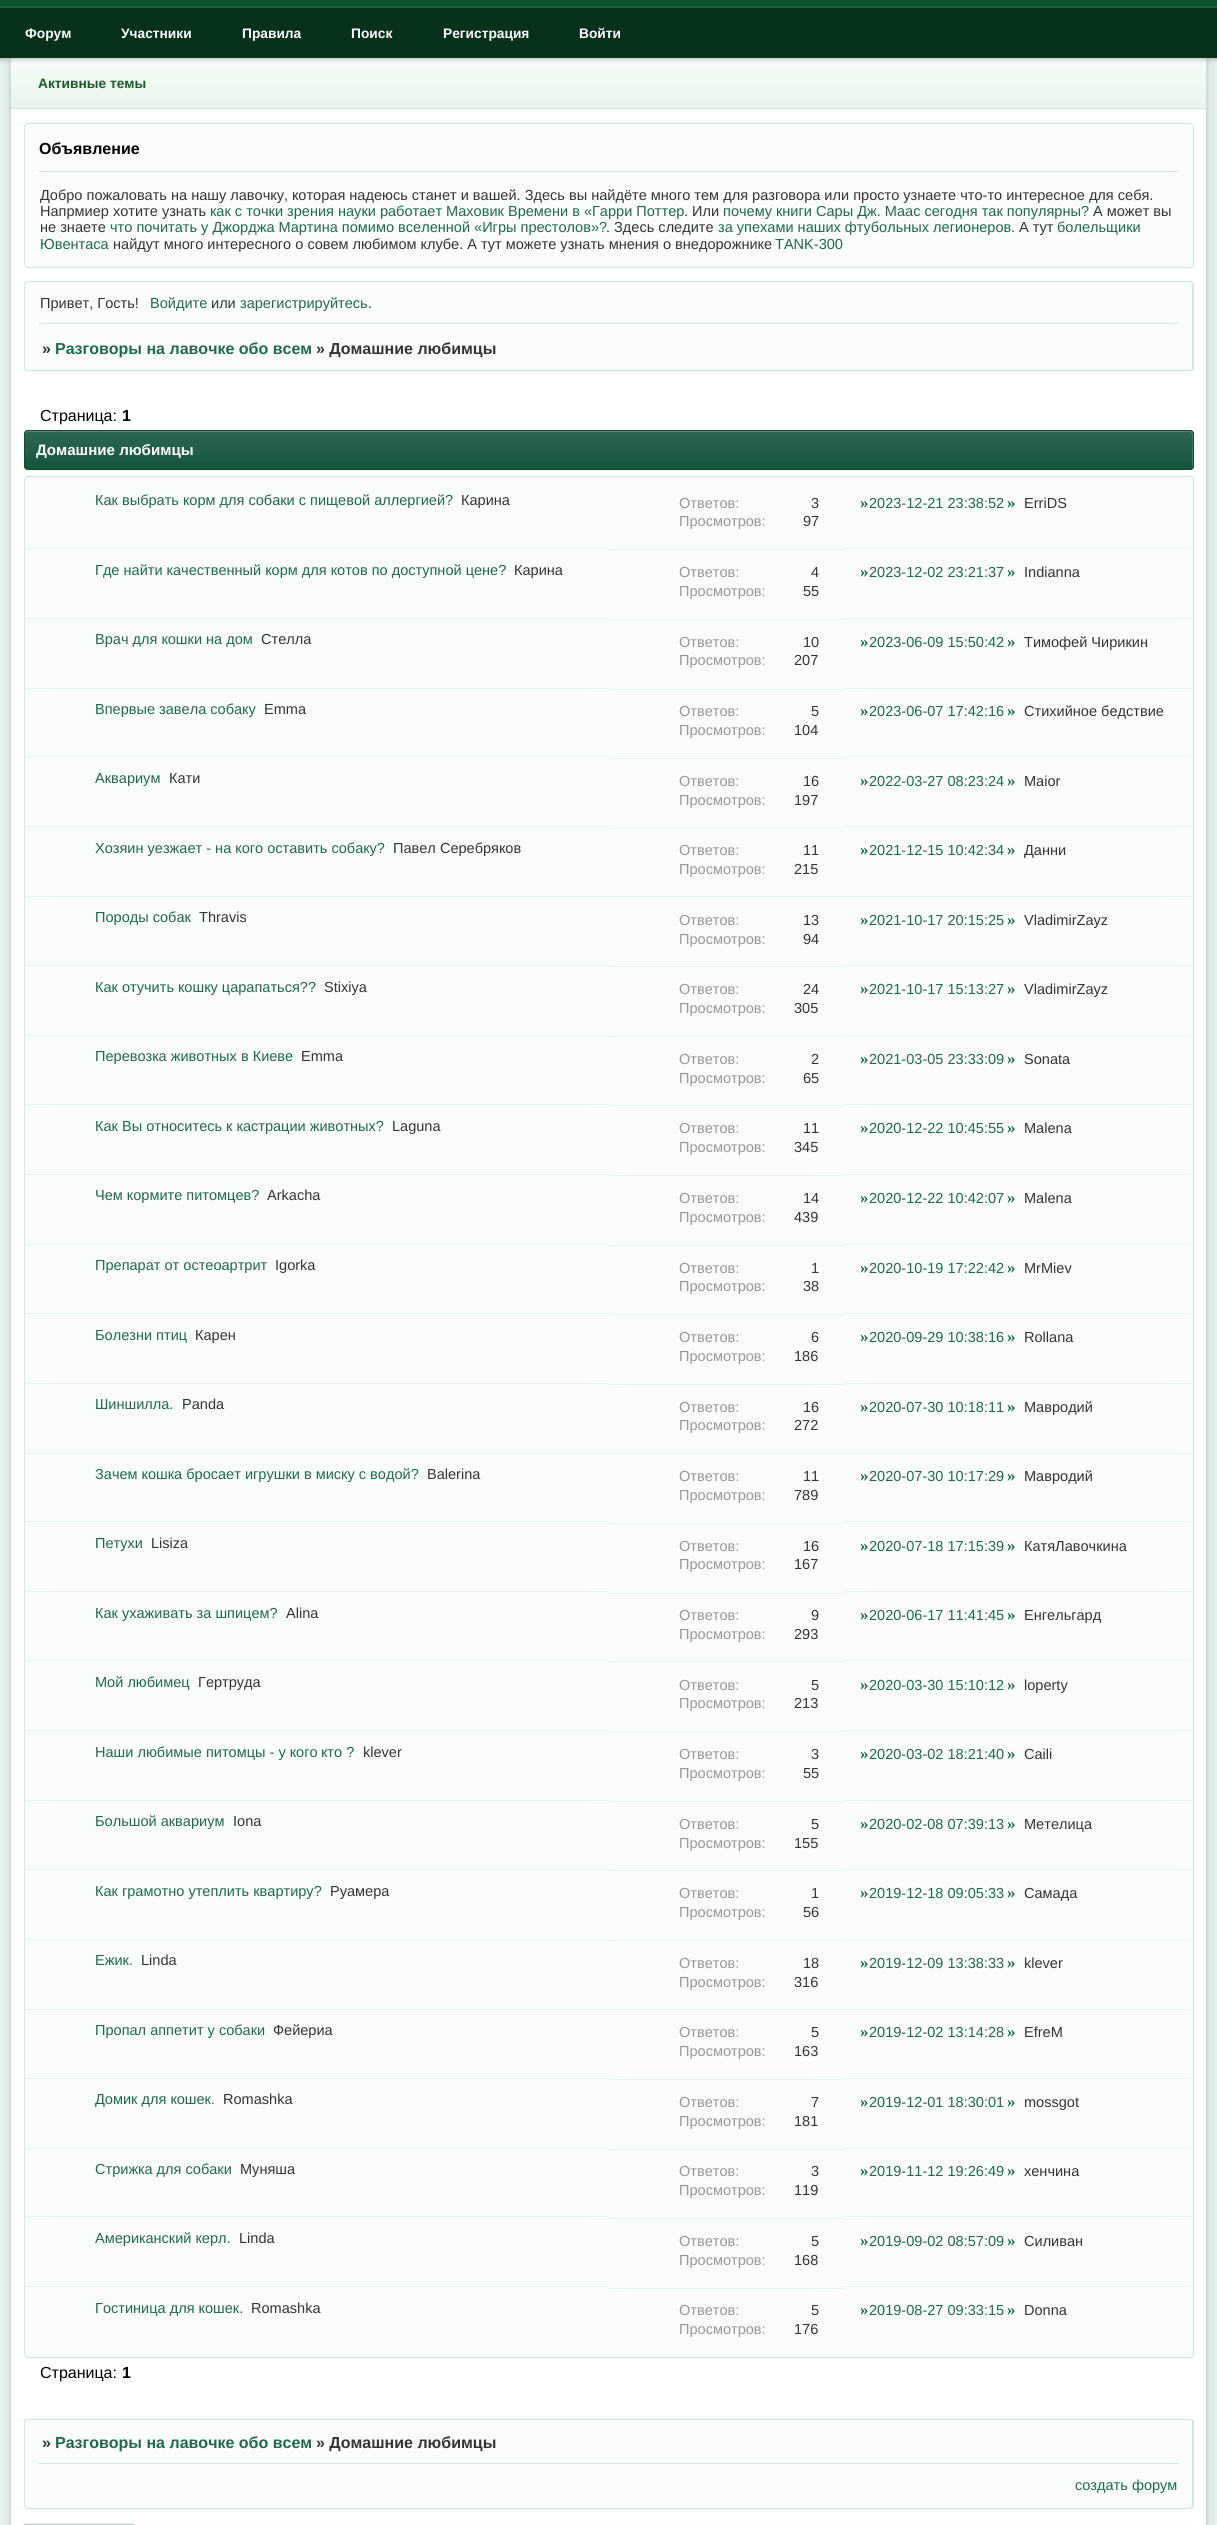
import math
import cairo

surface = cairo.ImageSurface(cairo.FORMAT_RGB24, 1217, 2525)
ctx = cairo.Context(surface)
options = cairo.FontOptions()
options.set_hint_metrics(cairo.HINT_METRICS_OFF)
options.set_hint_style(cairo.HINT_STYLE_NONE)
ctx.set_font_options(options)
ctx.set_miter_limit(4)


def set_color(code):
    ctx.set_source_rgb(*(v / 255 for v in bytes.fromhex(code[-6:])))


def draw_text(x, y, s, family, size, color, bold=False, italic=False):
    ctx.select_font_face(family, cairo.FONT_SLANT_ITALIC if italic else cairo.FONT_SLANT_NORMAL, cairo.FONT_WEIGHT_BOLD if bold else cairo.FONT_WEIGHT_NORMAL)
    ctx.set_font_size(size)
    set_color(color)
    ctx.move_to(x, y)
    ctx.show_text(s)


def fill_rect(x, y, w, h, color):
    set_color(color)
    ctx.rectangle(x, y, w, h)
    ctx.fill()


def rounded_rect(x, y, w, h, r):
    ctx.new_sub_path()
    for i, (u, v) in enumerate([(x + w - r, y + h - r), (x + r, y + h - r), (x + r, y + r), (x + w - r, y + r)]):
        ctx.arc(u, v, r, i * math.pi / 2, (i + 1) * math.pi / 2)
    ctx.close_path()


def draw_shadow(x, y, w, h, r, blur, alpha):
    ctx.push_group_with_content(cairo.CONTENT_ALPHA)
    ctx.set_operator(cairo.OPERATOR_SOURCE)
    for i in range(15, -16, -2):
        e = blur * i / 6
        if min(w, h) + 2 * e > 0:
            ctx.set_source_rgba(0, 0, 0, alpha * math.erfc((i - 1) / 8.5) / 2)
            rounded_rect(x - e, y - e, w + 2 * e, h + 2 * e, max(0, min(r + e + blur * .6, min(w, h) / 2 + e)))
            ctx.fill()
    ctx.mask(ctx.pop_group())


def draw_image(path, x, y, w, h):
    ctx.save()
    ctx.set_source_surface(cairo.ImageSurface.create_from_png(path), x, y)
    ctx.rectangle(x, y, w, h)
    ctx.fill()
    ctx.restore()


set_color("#e4f0ea")
ctx.paint()
set_color("#000000")
draw_shadow(11, -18, 1195, 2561, 6, 4, 0.2)
fill_rect(11, 109, 1195, 2416, "#ffffff")
gradient = cairo.LinearGradient(609, -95, 609, 58)
gradient.add_color_stop_rgba(0, 0.035, 0.259, 0.133, 1)
gradient.add_color_stop_rgba(0.7, 0.043, 0.322, 0.169, 1)
ctx.set_source(gradient)
ctx.rectangle(0, 0, 1217, 58)
ctx.fill()
gradient = cairo.LinearGradient(609, 57, 609, 108)
gradient.add_color_stop_rgba(0, 0.965, 0.984, 0.969, 1)
gradient.add_color_stop_rgba(1, 0.91, 0.961, 0.925, 1)
ctx.set_source(gradient)
ctx.rectangle(11, 58, 1195, 50)
ctx.fill()
ctx.save()
ctx.set_fill_rule(cairo.FILL_RULE_EVEN_ODD)
ctx.new_path()
ctx.move_to(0, 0)
ctx.line_to(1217, 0)
ctx.line_to(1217, 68)
ctx.line_to(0, 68)
ctx.close_path()
ctx.move_to(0, 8)
ctx.line_to(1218, 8)
ctx.line_to(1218, 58)
ctx.line_to(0, 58)
ctx.close_path()
ctx.clip()
set_color("#000000")
draw_shadow(0, 9, 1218, 50, 0, 2.5, 0.3)
ctx.restore()
set_color("#1e5c3a")
ctx.new_path()
ctx.move_to(0, 6)
ctx.line_to(0, 8)
ctx.line_to(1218, 8)
ctx.line_to(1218, 56)
ctx.line_to(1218, 6)
ctx.close_path()
ctx.fill()
ctx.set_source_rgba(0, 0, 0, 0.4)
ctx.rectangle(0, 8, 1217, 50)
ctx.fill()
draw_text(25, 38, "Форум", "Liberation Sans", 13.75, "#ffffff", bold=True)
draw_text(121, 38, "Участники", "Liberation Sans", 13.75, "#ffffff", bold=True)
draw_text(242, 38, "Правила", "Liberation Sans", 13.75, "#ffffff", bold=True)
draw_text(351, 38, "Поиск", "Liberation Sans", 13.75, "#ffffff", bold=True)
draw_text(443, 38, "Регистрация", "Liberation Sans", 13.75, "#ffffff", bold=True)
draw_text(579, 38, "Войти", "Liberation Sans", 13.75, "#ffffff", bold=True)
fill_rect(11, 108, 1195, 1, "#c9ebd3")
draw_text(38, 88, "Активные темы", "Liberation Sans", 13.75, "#195c2b", bold=True)
set_color("#fafcfb")
rounded_rect(24.5, 123.5, 1169, 144, 3.5)
ctx.fill_preserve()
set_color("#c9ebd8")
ctx.set_line_width(1)
ctx.stroke()
fill_rect(39, 173, 1140, 1, "#ffffff")
fill_rect(39, 171, 1140, 1, "#c9ebd5")
draw_text(39, 154, "Объявление", "Liberation Sans", 16, "#000000", bold=True)
draw_text(40, 200, "Добро пожаловать на нашу лавочку, которая надеюсь станет и вашей. Здесь вы найдёте много тем для разговора или просто узнаете что-то интересное для себя.", "Liberation Sans", 14.55, "#333333")
draw_text(40, 216, "Напрмиер хотите узнать", "Liberation Sans", 14.55, "#333333")
draw_text(210, 216, "как с точки зрения науки работает Маховик Времени в «Гарри Поттер", "Liberation Sans", 14.55, "#206750")
draw_text(684, 216, ". Или", "Liberation Sans", 14.55, "#333333")
draw_text(723, 216, "почему книги Сары Дж. Маас сегодня так популярны?", "Liberation Sans", 14.55, "#206750")
draw_text(1093, 216, "А может вы", "Liberation Sans", 14.55, "#333333")
draw_text(40, 232, "не знаете", "Liberation Sans", 14.55, "#333333")
draw_text(110, 232, "что почитать у Джорджа Мартина помимо вселенной «Игры престолов»?", "Liberation Sans", 14.55, "#206750")
draw_text(606, 232, ". Здесь следите", "Liberation Sans", 14.55, "#333333")
draw_text(718, 232, "за упехами наших фтубольных легионеров", "Liberation Sans", 14.55, "#206750")
draw_text(1011, 232, ". А тут", "Liberation Sans", 14.55, "#333333")
draw_text(1057, 232, "болельщики", "Liberation Sans", 14.55, "#206750")
draw_text(40, 249, "Ювентаса", "Liberation Sans", 14.55, "#206750")
draw_text(113, 249, "найдут много интересного о совем любимом клубе. А тут можете узнать мнения о внедорожнике", "Liberation Sans", 14.55, "#333333")
draw_text(775, 249, "TANK-300", "Liberation Sans", 14.55, "#206750")
set_color("#fafcfb")
ctx.new_path()
ctx.move_to(28, 281)
ctx.line_to(1190, 281)
ctx.curve_to(1192, 281, 1194, 283, 1194, 285)
ctx.line_to(1194, 325)
ctx.line_to(24, 325)
ctx.line_to(24, 285)
ctx.curve_to(24, 283, 26, 281, 28, 281)
ctx.close_path()
ctx.fill()
set_color("#c9ebd8")
ctx.set_fill_rule(cairo.FILL_RULE_EVEN_ODD)
ctx.new_path()
ctx.move_to(28, 281)
ctx.line_to(1190, 281)
ctx.curve_to(1192, 281, 1194, 283, 1194, 285)
ctx.line_to(1194, 325)
ctx.line_to(24, 325)
ctx.line_to(24, 285)
ctx.curve_to(24, 283, 25, 281, 28, 281)
ctx.close_path()
ctx.move_to(28, 282)
ctx.line_to(1190, 282)
ctx.curve_to(1191, 282, 1192, 284, 1192, 285)
ctx.line_to(1192, 325)
ctx.line_to(25, 325)
ctx.line_to(25, 285)
ctx.curve_to(25, 284, 26, 282, 28, 282)
ctx.close_path()
ctx.fill()
draw_text(40, 308, "Привет, Гость!", "Liberation Sans", 14.55, "#333333")
draw_text(150, 308, "Войдите", "Liberation Sans", 14.55, "#206750")
draw_text(211, 308, "или", "Liberation Sans", 14.55, "#333333")
draw_text(240, 308, "зарегистрируйтесь", "Liberation Sans", 14.55, "#206750")
draw_text(368, 308, ".", "Liberation Sans", 14.55, "#333333")
set_color("#fafcfb")
ctx.new_path()
ctx.move_to(24, 323)
ctx.line_to(1194, 323)
ctx.line_to(1194, 367)
ctx.curve_to(1194, 369, 1192, 371, 1190, 371)
ctx.line_to(28, 371)
ctx.curve_to(26, 371, 24, 369, 24, 367)
ctx.close_path()
ctx.fill()
ctx.save()
ctx.set_fill_rule(cairo.FILL_RULE_WINDING)
ctx.rectangle(24, 323, 1170, 48)
ctx.clip()
set_color("#c9ebd8")
ctx.set_fill_rule(cairo.FILL_RULE_EVEN_ODD)
ctx.new_path()
ctx.move_to(24, 322)
ctx.line_to(1194, 322)
ctx.line_to(1194, 368)
ctx.curve_to(1194, 370, 1192, 371, 1190, 371)
ctx.line_to(28, 371)
ctx.curve_to(25, 371, 24, 370, 24, 368)
ctx.close_path()
ctx.move_to(25, 322)
ctx.line_to(1192, 322)
ctx.line_to(1192, 368)
ctx.curve_to(1192, 369, 1191, 370, 1190, 370)
ctx.line_to(28, 370)
ctx.curve_to(26, 370, 25, 369, 25, 368)
ctx.close_path()
ctx.fill()
ctx.restore()
fill_rect(39, 323, 1140, 1, "#c9ebda")
draw_text(42, 354, "»", "Liberation Sans", 16, "#333333", bold=True)
draw_text(55, 354, "Разговоры на лавочке обо всем", "Liberation Sans", 16, "#206750", bold=True)
draw_text(316, 354, "» Домашние любимцы", "Liberation Sans", 16, "#333333", bold=True)
draw_text(40, 421, "Страница:", "Liberation Sans", 16, "#000000")
draw_text(122, 421, "1", "Liberation Sans", 16, "#000000", bold=True)
set_color("#17563f")
rounded_rect(24, 430, 1170, 40, 4)
ctx.fill()
gradient = cairo.LinearGradient(609, 431, 609, 469)
gradient.add_color_stop_rgba(0, 1, 1, 1, 0.1)
gradient.add_color_stop_rgba(1, 1, 1, 1, 0)
ctx.set_source(gradient)
ctx.rectangle(24, 431, 1170, 30)
ctx.fill()
ctx.set_source_rgba(1, 1, 1, 0.2)
ctx.set_fill_rule(cairo.FILL_RULE_WINDING)
ctx.new_path()
ctx.move_to(28, 432)
ctx.line_to(1190, 432)
ctx.curve_to(1194, 432, 1192, 449, 1192, 452)
ctx.line_to(1192, 469)
ctx.curve_to(1193, 468, 1193, 467, 1193, 466)
ctx.line_to(1193, 434)
ctx.curve_to(1193, 432, 1192, 431, 1190, 431)
ctx.line_to(28, 431)
ctx.curve_to(26, 431, 25, 432, 25, 434)
ctx.line_to(25, 435)
ctx.curve_to(25, 434, 26, 432, 28, 432)
ctx.close_path()
ctx.fill()
rounded_rect(24.5, 430.5, 1169, 39, 3.5)
set_color("#134a29")
ctx.stroke()
draw_text(36, 455, "Домашние любимцы", "Liberation Sans", 15.1, "#ffffff", bold=True)
set_color("#fafcfb")
rounded_rect(24.5, 476.5, 1169, 1881, 3.5)
ctx.fill_preserve()
set_color("#c9ebd7")
ctx.stroke()
draw_text(95, 505, "Как выбрать корм для собаки с пищевой аллергией?", "Liberation Sans", 14.55, "#206750")
draw_text(461, 505, "Карина", "Liberation Sans", 14.55, "#333333")
draw_text(679, 508, "Ответов:", "Liberation Sans", 14.55, "#969696")
draw_text(811, 508, "3", "Liberation Sans", 14.55, "#333333")
draw_text(860, 508, "»", "Liberation Serif", 17, "#206750", bold=True)
draw_text(869, 508, "2023-12-21 23:38:52", "Liberation Sans", 14.55, "#206750")
draw_text(1007, 508, "»", "Liberation Serif", 17, "#206750", bold=True)
draw_text(1024, 508, "ErriDS", "Liberation Sans", 14.55, "#333333")
draw_text(679, 526, "Просмотров:", "Liberation Sans", 14.55, "#969696")
draw_text(803, 526, "97", "Liberation Sans", 14.55, "#333333")
fill_rect(25, 548, 584, 1, "#e8f5ed")
draw_text(95, 575, "Где найти качественный корм для котов по доступной цене?", "Liberation Sans", 14.55, "#206750")
draw_text(514, 575, "Карина", "Liberation Sans", 14.55, "#333333")
fill_rect(609, 549, 234, 1, "#e8f5ed")
draw_text(679, 577, "Ответов:", "Liberation Sans", 14.55, "#969696")
draw_text(811, 577, "4", "Liberation Sans", 14.55, "#333333")
fill_rect(843, 548, 350, 1, "#e8f5ed")
draw_text(860, 577, "»", "Liberation Serif", 17, "#206750", bold=True)
draw_text(869, 577, "2023-12-02 23:21:37", "Liberation Sans", 14.55, "#206750")
draw_text(1007, 577, "»", "Liberation Serif", 17, "#206750", bold=True)
draw_text(1024, 577, "Indianna", "Liberation Sans", 14.55, "#333333")
draw_text(679, 596, "Просмотров:", "Liberation Sans", 14.55, "#969696")
draw_text(803, 596, "55", "Liberation Sans", 14.55, "#333333")
fill_rect(25, 618, 584, 1, "#e8f5ed")
draw_text(95, 644, "Врач для кошки на дом", "Liberation Sans", 14.55, "#206750")
draw_text(261, 644, "Стелла", "Liberation Sans", 14.55, "#333333")
fill_rect(609, 619, 234, 1, "#e8f5ed")
draw_text(679, 647, "Ответов:", "Liberation Sans", 14.55, "#969696")
draw_text(803, 647, "10", "Liberation Sans", 14.55, "#333333")
fill_rect(843, 618, 350, 1, "#e8f5ed")
draw_text(860, 647, "»", "Liberation Serif", 17, "#206750", bold=True)
draw_text(869, 647, "2023-06-09 15:50:42", "Liberation Sans", 14.55, "#206750")
draw_text(1007, 647, "»", "Liberation Serif", 17, "#206750", bold=True)
draw_text(1024, 647, "Тимофей Чирикин", "Liberation Sans", 14.55, "#333333")
draw_text(679, 665, "Просмотров:", "Liberation Sans", 14.55, "#969696")
draw_text(794, 665, "207", "Liberation Sans", 14.55, "#333333")
fill_rect(25, 688, 584, 1, "#e8f5ed")
draw_text(95, 714, "Впервые завела собаку", "Liberation Sans", 14.55, "#206750")
draw_text(264, 714, "Emma", "Liberation Sans", 14.55, "#333333")
fill_rect(609, 689, 234, 1, "#e8f5ed")
draw_text(679, 716, "Ответов:", "Liberation Sans", 14.55, "#969696")
draw_text(811, 716, "5", "Liberation Sans", 14.55, "#333333")
fill_rect(843, 688, 350, 1, "#e8f5ed")
draw_text(860, 716, "»", "Liberation Serif", 17, "#206750", bold=True)
draw_text(869, 716, "2023-06-07 17:42:16", "Liberation Sans", 14.55, "#206750")
draw_text(1007, 716, "»", "Liberation Serif", 17, "#206750", bold=True)
draw_text(1024, 716, "Стихийное бедствие", "Liberation Sans", 14.55, "#333333")
draw_text(679, 735, "Просмотров:", "Liberation Sans", 14.55, "#969696")
draw_text(794, 735, "104", "Liberation Sans", 14.55, "#333333")
fill_rect(25, 756, 584, 1, "#e8f5ed")
draw_text(95, 783, "Аквариум", "Liberation Sans", 14.55, "#206750")
draw_text(169, 783, "Кати", "Liberation Sans", 14.55, "#333333")
fill_rect(609, 758, 234, 1, "#e8f5ed")
draw_text(679, 786, "Ответов:", "Liberation Sans", 14.55, "#969696")
draw_text(803, 786, "16", "Liberation Sans", 14.55, "#333333")
fill_rect(843, 756, 350, 1, "#e8f5ed")
draw_text(860, 786, "»", "Liberation Serif", 17, "#206750", bold=True)
draw_text(869, 786, "2022-03-27 08:23:24", "Liberation Sans", 14.55, "#206750")
draw_text(1007, 786, "»", "Liberation Serif", 17, "#206750", bold=True)
draw_text(1024, 786, "Maior", "Liberation Sans", 14.55, "#333333")
draw_text(679, 805, "Просмотров:", "Liberation Sans", 14.55, "#969696")
draw_text(794, 805, "197", "Liberation Sans", 14.55, "#333333")
fill_rect(25, 826, 584, 1, "#e8f5ed")
draw_text(95, 853, "Хозяин уезжает - на кого оставить собаку?", "Liberation Sans", 14.55, "#206750")
draw_text(393, 853, "Павел Серебряков", "Liberation Sans", 14.55, "#333333")
fill_rect(609, 828, 234, 1, "#e8f5ed")
draw_text(679, 855, "Ответов:", "Liberation Sans", 14.55, "#969696")
draw_text(803, 855, "11", "Liberation Sans", 14.55, "#333333")
fill_rect(843, 826, 350, 1, "#e8f5ed")
draw_text(860, 855, "»", "Liberation Serif", 17, "#206750", bold=True)
draw_text(869, 855, "2021-12-15 10:42:34", "Liberation Sans", 14.55, "#206750")
draw_text(1007, 855, "»", "Liberation Serif", 17, "#206750", bold=True)
draw_text(1024, 855, "Данни", "Liberation Sans", 14.55, "#333333")
draw_text(679, 874, "Просмотров:", "Liberation Sans", 14.55, "#969696")
draw_text(794, 874, "215", "Liberation Sans", 14.55, "#333333")
fill_rect(25, 896, 584, 1, "#e8f5ed")
draw_text(95, 922, "Породы собак", "Liberation Sans", 14.55, "#206750")
draw_text(199, 922, "Thravis", "Liberation Sans", 14.55, "#333333")
fill_rect(609, 896, 234, 1, "#e8f5ed")
draw_text(679, 925, "Ответов:", "Liberation Sans", 14.55, "#969696")
draw_text(803, 925, "13", "Liberation Sans", 14.55, "#333333")
fill_rect(843, 896, 350, 1, "#e8f5ed")
draw_text(860, 925, "»", "Liberation Serif", 17, "#206750", bold=True)
draw_text(869, 925, "2021-10-17 20:15:25", "Liberation Sans", 14.55, "#206750")
draw_text(1007, 925, "»", "Liberation Serif", 17, "#206750", bold=True)
draw_text(1024, 925, "VladimirZayz", "Liberation Sans", 14.55, "#333333")
draw_text(679, 944, "Просмотров:", "Liberation Sans", 14.55, "#969696")
draw_text(803, 944, "94", "Liberation Sans", 14.55, "#333333")
fill_rect(25, 965, 584, 1, "#e8f5ed")
draw_text(95, 992, "Как отучить кошку царапаться??", "Liberation Sans", 14.55, "#206750")
draw_text(324, 992, "Stixiya", "Liberation Sans", 14.55, "#333333")
fill_rect(609, 966, 234, 1, "#e8f5ed")
draw_text(679, 994, "Ответов:", "Liberation Sans", 14.55, "#969696")
draw_text(803, 994, "24", "Liberation Sans", 14.55, "#333333")
fill_rect(843, 965, 350, 1, "#e8f5ed")
draw_text(860, 994, "»", "Liberation Serif", 17, "#206750", bold=True)
draw_text(869, 994, "2021-10-17 15:13:27", "Liberation Sans", 14.55, "#206750")
draw_text(1007, 994, "»", "Liberation Serif", 17, "#206750", bold=True)
draw_text(1024, 994, "VladimirZayz", "Liberation Sans", 14.55, "#333333")
draw_text(679, 1013, "Просмотров:", "Liberation Sans", 14.55, "#969696")
draw_text(794, 1013, "305", "Liberation Sans", 14.55, "#333333")
fill_rect(25, 1035, 584, 1, "#e8f5ed")
draw_text(95, 1061, "Перевозка животных в Киеве", "Liberation Sans", 14.55, "#206750")
draw_text(301, 1061, "Emma", "Liberation Sans", 14.55, "#333333")
fill_rect(609, 1036, 234, 1, "#e8f5ed")
draw_text(679, 1064, "Ответов:", "Liberation Sans", 14.55, "#969696")
draw_text(811, 1064, "2", "Liberation Sans", 14.55, "#333333")
fill_rect(843, 1035, 350, 1, "#e8f5ed")
draw_text(860, 1064, "»", "Liberation Serif", 17, "#206750", bold=True)
draw_text(869, 1064, "2021-03-05 23:33:09", "Liberation Sans", 14.55, "#206750")
draw_text(1007, 1064, "»", "Liberation Serif", 17, "#206750", bold=True)
draw_text(1024, 1064, "Sonata", "Liberation Sans", 14.55, "#333333")
draw_text(679, 1083, "Просмотров:", "Liberation Sans", 14.55, "#969696")
draw_text(803, 1083, "65", "Liberation Sans", 14.55, "#333333")
fill_rect(25, 1104, 584, 1, "#e8f5ed")
draw_text(95, 1131, "Как Вы относитесь к кастрации животных?", "Liberation Sans", 14.55, "#206750")
draw_text(392, 1131, "Laguna", "Liberation Sans", 14.55, "#333333")
fill_rect(609, 1105, 234, 1, "#e8f5ed")
draw_text(679, 1133, "Ответов:", "Liberation Sans", 14.55, "#969696")
draw_text(803, 1133, "11", "Liberation Sans", 14.55, "#333333")
fill_rect(843, 1104, 350, 1, "#e8f5ed")
draw_text(860, 1133, "»", "Liberation Serif", 17, "#206750", bold=True)
draw_text(869, 1133, "2020-12-22 10:45:55", "Liberation Sans", 14.55, "#206750")
draw_text(1007, 1133, "»", "Liberation Serif", 17, "#206750", bold=True)
draw_text(1024, 1133, "Malena", "Liberation Sans", 14.55, "#333333")
draw_text(679, 1152, "Просмотров:", "Liberation Sans", 14.55, "#969696")
draw_text(794, 1152, "345", "Liberation Sans", 14.55, "#333333")
fill_rect(25, 1174, 584, 1, "#e8f5ed")
draw_text(95, 1200, "Чем кормите питомцев?", "Liberation Sans", 14.55, "#206750")
draw_text(267, 1200, "Arkacha", "Liberation Sans", 14.55, "#333333")
fill_rect(609, 1175, 234, 1, "#e8f5ed")
draw_text(679, 1203, "Ответов:", "Liberation Sans", 14.55, "#969696")
draw_text(803, 1203, "14", "Liberation Sans", 14.55, "#333333")
fill_rect(843, 1174, 350, 1, "#e8f5ed")
draw_text(860, 1203, "»", "Liberation Serif", 17, "#206750", bold=True)
draw_text(869, 1203, "2020-12-22 10:42:07", "Liberation Sans", 14.55, "#206750")
draw_text(1007, 1203, "»", "Liberation Serif", 17, "#206750", bold=True)
draw_text(1024, 1203, "Malena", "Liberation Sans", 14.55, "#333333")
draw_text(679, 1222, "Просмотров:", "Liberation Sans", 14.55, "#969696")
draw_text(794, 1222, "439", "Liberation Sans", 14.55, "#333333")
fill_rect(25, 1244, 584, 1, "#e8f5ed")
draw_text(95, 1270, "Препарат от остеоартрит", "Liberation Sans", 14.55, "#206750")
draw_text(275, 1270, "Igorka", "Liberation Sans", 14.55, "#333333")
fill_rect(609, 1245, 234, 1, "#e8f5ed")
draw_text(679, 1273, "Ответов:", "Liberation Sans", 14.55, "#969696")
draw_text(811, 1273, "1", "Liberation Sans", 14.55, "#333333")
fill_rect(843, 1244, 350, 1, "#e8f5ed")
draw_text(860, 1273, "»", "Liberation Serif", 17, "#206750", bold=True)
draw_text(869, 1273, "2020-10-19 17:22:42", "Liberation Sans", 14.55, "#206750")
draw_text(1007, 1273, "»", "Liberation Serif", 17, "#206750", bold=True)
draw_text(1024, 1273, "MrMiev", "Liberation Sans", 14.55, "#333333")
draw_text(679, 1291, "Просмотров:", "Liberation Sans", 14.55, "#969696")
draw_text(803, 1291, "38", "Liberation Sans", 14.55, "#333333")
fill_rect(25, 1313, 584, 1, "#e8f5ed")
draw_text(95, 1340, "Болезни птиц", "Liberation Sans", 14.55, "#206750")
draw_text(195, 1340, "Карен", "Liberation Sans", 14.55, "#333333")
fill_rect(609, 1314, 234, 1, "#e8f5ed")
draw_text(679, 1342, "Ответов:", "Liberation Sans", 14.55, "#969696")
draw_text(811, 1342, "6", "Liberation Sans", 14.55, "#333333")
fill_rect(843, 1313, 350, 1, "#e8f5ed")
draw_text(860, 1342, "»", "Liberation Serif", 17, "#206750", bold=True)
draw_text(869, 1342, "2020-09-29 10:38:16", "Liberation Sans", 14.55, "#206750")
draw_text(1007, 1342, "»", "Liberation Serif", 17, "#206750", bold=True)
draw_text(1024, 1342, "Rollana", "Liberation Sans", 14.55, "#333333")
draw_text(679, 1361, "Просмотров:", "Liberation Sans", 14.55, "#969696")
draw_text(794, 1361, "186", "Liberation Sans", 14.55, "#333333")
fill_rect(25, 1383, 584, 1, "#e8f5ed")
draw_text(95, 1409, "Шиншилла.", "Liberation Sans", 14.55, "#206750")
draw_text(182, 1409, "Panda", "Liberation Sans", 14.55, "#333333")
fill_rect(609, 1384, 234, 1, "#e8f5ed")
draw_text(679, 1412, "Ответов:", "Liberation Sans", 14.55, "#969696")
draw_text(803, 1412, "16", "Liberation Sans", 14.55, "#333333")
fill_rect(843, 1383, 350, 1, "#e8f5ed")
draw_text(860, 1412, "»", "Liberation Serif", 17, "#206750", bold=True)
draw_text(869, 1412, "2020-07-30 10:18:11", "Liberation Sans", 14.55, "#206750")
draw_text(1007, 1412, "»", "Liberation Serif", 17, "#206750", bold=True)
draw_text(1024, 1412, "Мавродий", "Liberation Sans", 14.55, "#333333")
draw_text(679, 1430, "Просмотров:", "Liberation Sans", 14.55, "#969696")
draw_text(794, 1430, "272", "Liberation Sans", 14.55, "#333333")
fill_rect(25, 1453, 584, 1, "#e8f5ed")
draw_text(95, 1479, "Зачем кошка бросает игрушки в миску с водой?", "Liberation Sans", 14.55, "#206750")
draw_text(427, 1479, "Balerina", "Liberation Sans", 14.55, "#333333")
fill_rect(609, 1453, 234, 1, "#e8f5ed")
draw_text(679, 1481, "Ответов:", "Liberation Sans", 14.55, "#969696")
draw_text(803, 1481, "11", "Liberation Sans", 14.55, "#333333")
fill_rect(843, 1453, 350, 1, "#e8f5ed")
draw_text(860, 1481, "»", "Liberation Serif", 17, "#206750", bold=True)
draw_text(869, 1481, "2020-07-30 10:17:29", "Liberation Sans", 14.55, "#206750")
draw_text(1007, 1481, "»", "Liberation Serif", 17, "#206750", bold=True)
draw_text(1024, 1481, "Мавродий", "Liberation Sans", 14.55, "#333333")
draw_text(679, 1500, "Просмотров:", "Liberation Sans", 14.55, "#969696")
draw_text(794, 1500, "789", "Liberation Sans", 14.55, "#333333")
fill_rect(25, 1521, 584, 1, "#e8f5ed")
draw_text(95, 1548, "Петухи", "Liberation Sans", 14.55, "#206750")
draw_text(151, 1548, "Lisiza", "Liberation Sans", 14.55, "#333333")
fill_rect(609, 1523, 234, 1, "#e8f5ed")
draw_text(679, 1551, "Ответов:", "Liberation Sans", 14.55, "#969696")
draw_text(803, 1551, "16", "Liberation Sans", 14.55, "#333333")
fill_rect(843, 1521, 350, 1, "#e8f5ed")
draw_text(860, 1551, "»", "Liberation Serif", 17, "#206750", bold=True)
draw_text(869, 1551, "2020-07-18 17:15:39", "Liberation Sans", 14.55, "#206750")
draw_text(1007, 1551, "»", "Liberation Serif", 17, "#206750", bold=True)
draw_text(1024, 1551, "КатяЛавочкина", "Liberation Sans", 14.55, "#333333")
draw_text(679, 1569, "Просмотров:", "Liberation Sans", 14.55, "#969696")
draw_text(794, 1569, "167", "Liberation Sans", 14.55, "#333333")
fill_rect(25, 1591, 584, 1, "#e8f5ed")
draw_text(95, 1618, "Как ухаживать за шпицем?", "Liberation Sans", 14.55, "#206750")
draw_text(286, 1618, "Alina", "Liberation Sans", 14.55, "#333333")
fill_rect(609, 1593, 234, 1, "#e8f5ed")
draw_text(679, 1620, "Ответов:", "Liberation Sans", 14.55, "#969696")
draw_text(811, 1620, "9", "Liberation Sans", 14.55, "#333333")
fill_rect(843, 1591, 350, 1, "#e8f5ed")
draw_text(860, 1620, "»", "Liberation Serif", 17, "#206750", bold=True)
draw_text(869, 1620, "2020-06-17 11:41:45", "Liberation Sans", 14.55, "#206750")
draw_text(1007, 1620, "»", "Liberation Serif", 17, "#206750", bold=True)
draw_text(1024, 1620, "Енгельгард", "Liberation Sans", 14.55, "#333333")
draw_text(679, 1639, "Просмотров:", "Liberation Sans", 14.55, "#969696")
draw_text(794, 1639, "293", "Liberation Sans", 14.55, "#333333")
fill_rect(25, 1660, 584, 1, "#e8f5ed")
draw_text(95, 1687, "Мой любимец", "Liberation Sans", 14.55, "#206750")
draw_text(198, 1687, "Гертруда", "Liberation Sans", 14.55, "#333333")
fill_rect(609, 1661, 234, 1, "#e8f5ed")
draw_text(679, 1690, "Ответов:", "Liberation Sans", 14.55, "#969696")
draw_text(811, 1690, "5", "Liberation Sans", 14.55, "#333333")
fill_rect(843, 1660, 350, 1, "#e8f5ed")
draw_text(860, 1690, "»", "Liberation Serif", 17, "#206750", bold=True)
draw_text(869, 1690, "2020-03-30 15:10:12", "Liberation Sans", 14.55, "#206750")
draw_text(1007, 1690, "»", "Liberation Serif", 17, "#206750", bold=True)
draw_text(1024, 1690, "loperty", "Liberation Sans", 14.55, "#333333")
draw_text(679, 1708, "Просмотров:", "Liberation Sans", 14.55, "#969696")
draw_text(794, 1708, "213", "Liberation Sans", 14.55, "#333333")
fill_rect(25, 1730, 584, 1, "#e8f5ed")
draw_text(95, 1757, "Наши любимые питомцы - у кого", "Liberation Sans", 14.55, "#206750")
draw_text(321, 1757, "кто ?", "Liberation Sans", 14.55, "#206750")
draw_text(363, 1757, "klever", "Liberation Sans", 14.55, "#333333")
fill_rect(609, 1731, 234, 1, "#e8f5ed")
draw_text(679, 1759, "Ответов:", "Liberation Sans", 14.55, "#969696")
draw_text(811, 1759, "3", "Liberation Sans", 14.55, "#333333")
fill_rect(843, 1730, 350, 1, "#e8f5ed")
draw_text(860, 1759, "»", "Liberation Serif", 17, "#206750", bold=True)
draw_text(869, 1759, "2020-03-02 18:21:40", "Liberation Sans", 14.55, "#206750")
draw_text(1007, 1759, "»", "Liberation Serif", 17, "#206750", bold=True)
draw_text(1024, 1759, "Caili", "Liberation Sans", 14.55, "#333333")
draw_text(679, 1778, "Просмотров:", "Liberation Sans", 14.55, "#969696")
draw_text(803, 1778, "55", "Liberation Sans", 14.55, "#333333")
fill_rect(25, 1800, 584, 1, "#e8f5ed")
draw_text(95, 1826, "Большой аквариум", "Liberation Sans", 14.55, "#206750")
draw_text(233, 1826, "Iona", "Liberation Sans", 14.55, "#333333")
fill_rect(609, 1801, 234, 1, "#e8f5ed")
draw_text(679, 1829, "Ответов:", "Liberation Sans", 14.55, "#969696")
draw_text(811, 1829, "5", "Liberation Sans", 14.55, "#333333")
fill_rect(843, 1800, 350, 1, "#e8f5ed")
draw_text(860, 1829, "»", "Liberation Serif", 17, "#206750", bold=True)
draw_text(869, 1829, "2020-02-08 07:39:13", "Liberation Sans", 14.55, "#206750")
draw_text(1007, 1829, "»", "Liberation Serif", 17, "#206750", bold=True)
draw_text(1024, 1829, "Метелица", "Liberation Sans", 14.55, "#333333")
draw_text(679, 1848, "Просмотров:", "Liberation Sans", 14.55, "#969696")
draw_text(794, 1848, "155", "Liberation Sans", 14.55, "#333333")
fill_rect(25, 1869, 584, 1, "#e8f5ed")
draw_text(95, 1896, "Как грамотно утеплить квартиру?", "Liberation Sans", 14.55, "#206750")
draw_text(330, 1896, "Руамера", "Liberation Sans", 14.55, "#333333")
fill_rect(609, 1870, 234, 1, "#e8f5ed")
draw_text(679, 1898, "Ответов:", "Liberation Sans", 14.55, "#969696")
draw_text(811, 1898, "1", "Liberation Sans", 14.55, "#333333")
fill_rect(843, 1869, 350, 1, "#e8f5ed")
draw_text(860, 1898, "»", "Liberation Serif", 17, "#206750", bold=True)
draw_text(869, 1898, "2019-12-18 09:05:33", "Liberation Sans", 14.55, "#206750")
draw_text(1007, 1898, "»", "Liberation Serif", 17, "#206750", bold=True)
draw_text(1024, 1898, "Самада", "Liberation Sans", 14.55, "#333333")
draw_text(679, 1917, "Просмотров:", "Liberation Sans", 14.55, "#969696")
draw_text(803, 1917, "56", "Liberation Sans", 14.55, "#333333")
fill_rect(25, 1939, 584, 1, "#e8f5ed")
draw_text(95, 1965, "Ежик.", "Liberation Sans", 14.55, "#206750")
draw_text(141, 1965, "Linda", "Liberation Sans", 14.55, "#333333")
fill_rect(609, 1940, 234, 1, "#e8f5ed")
draw_text(679, 1968, "Ответов:", "Liberation Sans", 14.55, "#969696")
draw_text(803, 1968, "18", "Liberation Sans", 14.55, "#333333")
fill_rect(843, 1939, 350, 1, "#e8f5ed")
draw_text(860, 1968, "»", "Liberation Serif", 17, "#206750", bold=True)
draw_text(869, 1968, "2019-12-09 13:38:33", "Liberation Sans", 14.55, "#206750")
draw_text(1007, 1968, "»", "Liberation Serif", 17, "#206750", bold=True)
draw_text(1024, 1968, "klever", "Liberation Sans", 14.55, "#333333")
draw_text(679, 1987, "Просмотров:", "Liberation Sans", 14.55, "#969696")
draw_text(794, 1987, "316", "Liberation Sans", 14.55, "#333333")
fill_rect(25, 2009, 584, 1, "#e8f5ed")
draw_text(95, 2035, "Пропал аппетит у собаки", "Liberation Sans", 14.55, "#206750")
draw_text(273, 2035, "Фейериа", "Liberation Sans", 14.55, "#333333")
fill_rect(609, 2009, 234, 1, "#e8f5ed")
draw_text(679, 2037, "Ответов:", "Liberation Sans", 14.55, "#969696")
draw_text(811, 2037, "5", "Liberation Sans", 14.55, "#333333")
fill_rect(843, 2009, 350, 1, "#e8f5ed")
draw_text(860, 2037, "»", "Liberation Serif", 17, "#206750", bold=True)
draw_text(869, 2037, "2019-12-02 13:14:28", "Liberation Sans", 14.55, "#206750")
draw_text(1007, 2037, "»", "Liberation Serif", 17, "#206750", bold=True)
draw_text(1024, 2037, "EfreM", "Liberation Sans", 14.55, "#333333")
draw_text(679, 2056, "Просмотров:", "Liberation Sans", 14.55, "#969696")
draw_text(794, 2056, "163", "Liberation Sans", 14.55, "#333333")
fill_rect(25, 2078, 584, 1, "#e8f5ed")
draw_text(95, 2104, "Домик для кошек.", "Liberation Sans", 14.55, "#206750")
draw_text(223, 2104, "Romashka", "Liberation Sans", 14.55, "#333333")
fill_rect(609, 2079, 234, 1, "#e8f5ed")
draw_text(679, 2107, "Ответов:", "Liberation Sans", 14.55, "#969696")
draw_text(811, 2107, "7", "Liberation Sans", 14.55, "#333333")
fill_rect(843, 2078, 350, 1, "#e8f5ed")
draw_text(860, 2107, "»", "Liberation Serif", 17, "#206750", bold=True)
draw_text(869, 2107, "2019-12-01 18:30:01", "Liberation Sans", 14.55, "#206750")
draw_text(1007, 2107, "»", "Liberation Serif", 17, "#206750", bold=True)
draw_text(1024, 2107, "mossgot", "Liberation Sans", 14.55, "#333333")
draw_text(679, 2126, "Просмотров:", "Liberation Sans", 14.55, "#969696")
draw_text(794, 2126, "181", "Liberation Sans", 14.55, "#333333")
fill_rect(25, 2148, 584, 1, "#e8f5ed")
draw_text(95, 2174, "Стрижка для собаки", "Liberation Sans", 14.55, "#206750")
draw_text(240, 2174, "Муняша", "Liberation Sans", 14.55, "#333333")
fill_rect(609, 2149, 234, 1, "#e8f5ed")
draw_text(679, 2176, "Ответов:", "Liberation Sans", 14.55, "#969696")
draw_text(811, 2176, "3", "Liberation Sans", 14.55, "#333333")
fill_rect(843, 2148, 350, 1, "#e8f5ed")
draw_text(860, 2176, "»", "Liberation Serif", 17, "#206750", bold=True)
draw_text(869, 2176, "2019-11-12 19:26:49", "Liberation Sans", 14.55, "#206750")
draw_text(1007, 2176, "»", "Liberation Serif", 17, "#206750", bold=True)
draw_text(1024, 2176, "хенчина", "Liberation Sans", 14.55, "#333333")
draw_text(679, 2195, "Просмотров:", "Liberation Sans", 14.55, "#969696")
draw_text(794, 2195, "119", "Liberation Sans", 14.55, "#333333")
fill_rect(25, 2216, 584, 1, "#e8f5ed")
draw_text(95, 2243, "Американский керл.", "Liberation Sans", 14.55, "#206750")
draw_text(239, 2243, "Linda", "Liberation Sans", 14.55, "#333333")
fill_rect(609, 2218, 234, 1, "#e8f5ed")
draw_text(679, 2246, "Ответов:", "Liberation Sans", 14.55, "#969696")
draw_text(811, 2246, "5", "Liberation Sans", 14.55, "#333333")
fill_rect(843, 2216, 350, 1, "#e8f5ed")
draw_text(860, 2246, "»", "Liberation Serif", 17, "#206750", bold=True)
draw_text(869, 2246, "2019-09-02 08:57:09", "Liberation Sans", 14.55, "#206750")
draw_text(1007, 2246, "»", "Liberation Serif", 17, "#206750", bold=True)
draw_text(1024, 2246, "Силиван", "Liberation Sans", 14.55, "#333333")
draw_text(679, 2265, "Просмотров:", "Liberation Sans", 14.55, "#969696")
draw_text(794, 2265, "168", "Liberation Sans", 14.55, "#333333")
fill_rect(25, 2286, 584, 1, "#e8f5ed")
draw_text(95, 2313, "Гостиница для кошек.", "Liberation Sans", 14.55, "#206750")
draw_text(251, 2313, "Romashka", "Liberation Sans", 14.55, "#333333")
fill_rect(609, 2288, 234, 1, "#e8f5ed")
draw_text(679, 2315, "Ответов:", "Liberation Sans", 14.55, "#969696")
draw_text(811, 2315, "5", "Liberation Sans", 14.55, "#333333")
fill_rect(843, 2286, 350, 1, "#e8f5ed")
draw_text(860, 2315, "»", "Liberation Serif", 17, "#206750", bold=True)
draw_text(869, 2315, "2019-08-27 09:33:15", "Liberation Sans", 14.55, "#206750")
draw_text(1007, 2315, "»", "Liberation Serif", 17, "#206750", bold=True)
draw_text(1024, 2315, "Donna", "Liberation Sans", 14.55, "#333333")
draw_text(679, 2334, "Просмотров:", "Liberation Sans", 14.55, "#969696")
draw_text(794, 2334, "176", "Liberation Sans", 14.55, "#333333")
draw_text(40, 2378, "Страница:", "Liberation Sans", 16, "#000000")
draw_text(122, 2378, "1", "Liberation Sans", 16, "#000000", bold=True)
set_color("#fafcfb")
ctx.new_path()
ctx.move_to(24, 2463)
ctx.line_to(1194, 2463)
ctx.line_to(1194, 2505)
ctx.curve_to(1194, 2507, 1192, 2509, 1190, 2509)
ctx.line_to(28, 2509)
ctx.curve_to(26, 2509, 24, 2507, 24, 2505)
ctx.close_path()
ctx.fill()
set_color("#c9ebd8")
ctx.set_fill_rule(cairo.FILL_RULE_EVEN_ODD)
ctx.new_path()
ctx.move_to(24, 2462)
ctx.line_to(1194, 2462)
ctx.line_to(1194, 2505)
ctx.curve_to(1194, 2507, 1192, 2509, 1190, 2509)
ctx.line_to(28, 2509)
ctx.curve_to(25, 2509, 24, 2507, 24, 2505)
ctx.close_path()
ctx.move_to(25, 2462)
ctx.line_to(1192, 2462)
ctx.line_to(1192, 2505)
ctx.curve_to(1192, 2506, 1191, 2508, 1190, 2508)
ctx.line_to(28, 2508)
ctx.curve_to(26, 2508, 25, 2506, 25, 2505)
ctx.close_path()
ctx.fill()
set_color("#fafcfb")
ctx.new_path()
ctx.move_to(28, 2419)
ctx.line_to(1190, 2419)
ctx.curve_to(1192, 2419, 1194, 2421, 1194, 2423)
ctx.line_to(1194, 2465)
ctx.line_to(24, 2465)
ctx.line_to(24, 2423)
ctx.curve_to(24, 2421, 26, 2419, 28, 2419)
ctx.close_path()
ctx.fill()
set_color("#c9ebd8")
ctx.new_path()
ctx.move_to(28, 2419)
ctx.line_to(1190, 2419)
ctx.curve_to(1192, 2419, 1194, 2420, 1194, 2422)
ctx.line_to(1194, 2465)
ctx.line_to(24, 2465)
ctx.line_to(24, 2422)
ctx.curve_to(24, 2420, 25, 2419, 28, 2419)
ctx.close_path()
ctx.move_to(28, 2420)
ctx.line_to(1190, 2420)
ctx.curve_to(1191, 2420, 1192, 2421, 1192, 2422)
ctx.line_to(1192, 2465)
ctx.line_to(25, 2465)
ctx.line_to(25, 2422)
ctx.curve_to(25, 2421, 26, 2420, 28, 2420)
ctx.close_path()
ctx.fill()
draw_text(42, 2448, "»", "Liberation Sans", 16, "#333333", bold=True)
draw_text(55, 2448, "Разговоры на лавочке обо всем", "Liberation Sans", 16, "#206750", bold=True)
draw_text(316, 2448, "» Домашние любимцы", "Liberation Sans", 16, "#333333", bold=True)
fill_rect(39, 2463, 1140, 1, "#c9ebda")
draw_text(1075, 2490, "создать форум", "Liberation Sans", 14.55, "#206750")
set_color("#fafcfb")
rounded_rect(24, 2524, 1170, 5, 4)
ctx.fill()
draw_image("assets/img1.png", 23, 2523, 111, 2)
surface.write_to_png("output.png")
